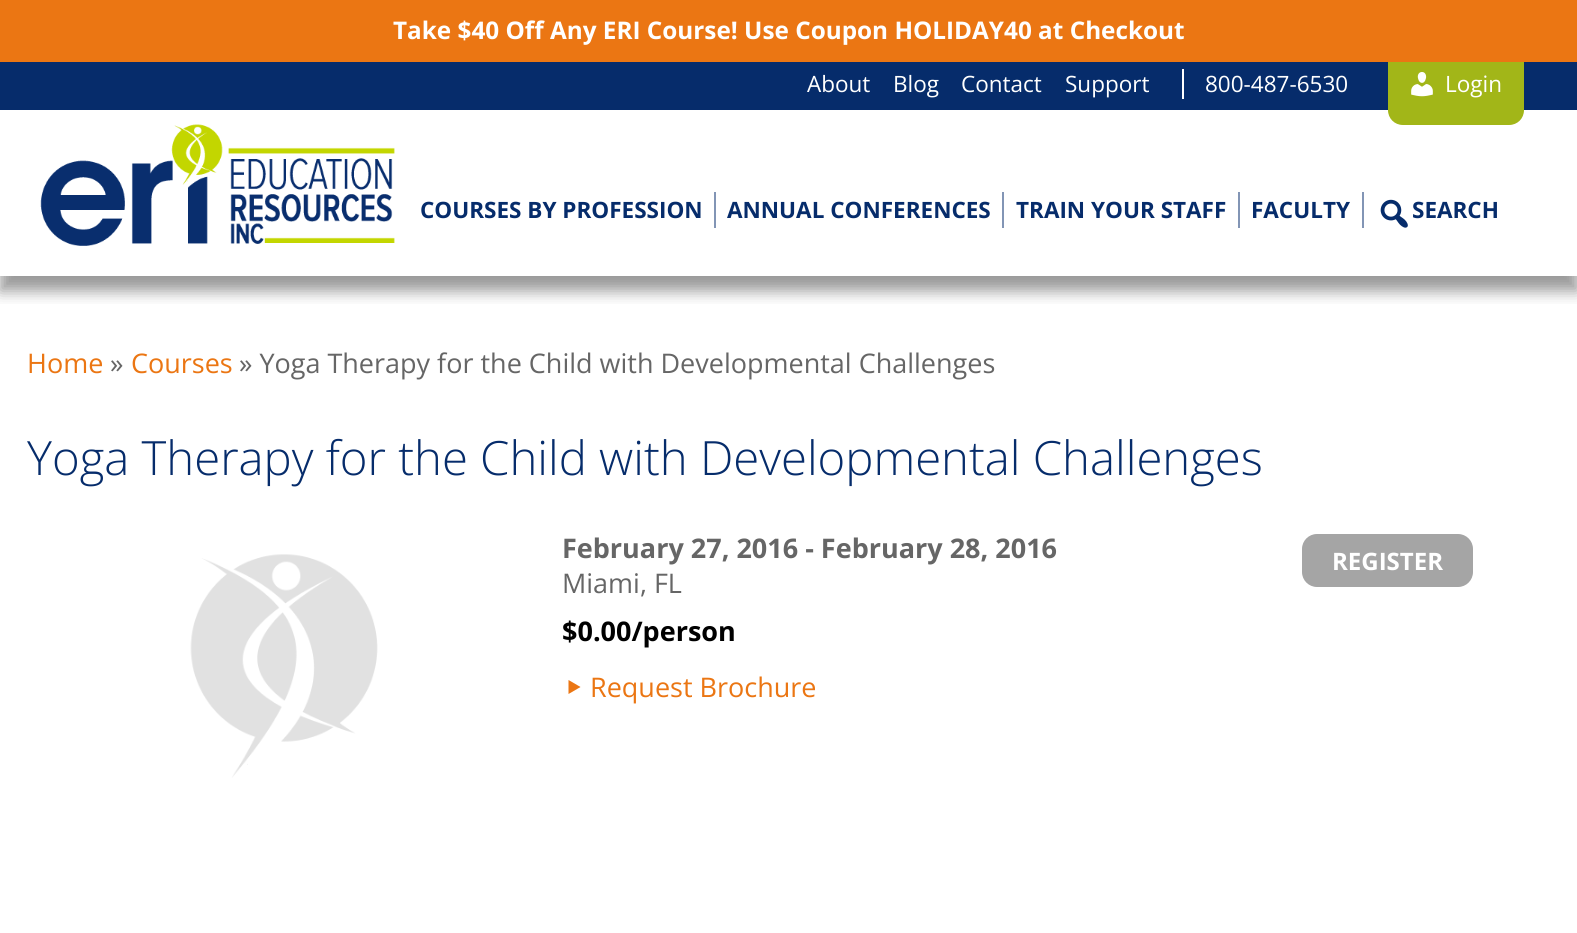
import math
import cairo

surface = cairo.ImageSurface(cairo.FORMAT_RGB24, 1577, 933)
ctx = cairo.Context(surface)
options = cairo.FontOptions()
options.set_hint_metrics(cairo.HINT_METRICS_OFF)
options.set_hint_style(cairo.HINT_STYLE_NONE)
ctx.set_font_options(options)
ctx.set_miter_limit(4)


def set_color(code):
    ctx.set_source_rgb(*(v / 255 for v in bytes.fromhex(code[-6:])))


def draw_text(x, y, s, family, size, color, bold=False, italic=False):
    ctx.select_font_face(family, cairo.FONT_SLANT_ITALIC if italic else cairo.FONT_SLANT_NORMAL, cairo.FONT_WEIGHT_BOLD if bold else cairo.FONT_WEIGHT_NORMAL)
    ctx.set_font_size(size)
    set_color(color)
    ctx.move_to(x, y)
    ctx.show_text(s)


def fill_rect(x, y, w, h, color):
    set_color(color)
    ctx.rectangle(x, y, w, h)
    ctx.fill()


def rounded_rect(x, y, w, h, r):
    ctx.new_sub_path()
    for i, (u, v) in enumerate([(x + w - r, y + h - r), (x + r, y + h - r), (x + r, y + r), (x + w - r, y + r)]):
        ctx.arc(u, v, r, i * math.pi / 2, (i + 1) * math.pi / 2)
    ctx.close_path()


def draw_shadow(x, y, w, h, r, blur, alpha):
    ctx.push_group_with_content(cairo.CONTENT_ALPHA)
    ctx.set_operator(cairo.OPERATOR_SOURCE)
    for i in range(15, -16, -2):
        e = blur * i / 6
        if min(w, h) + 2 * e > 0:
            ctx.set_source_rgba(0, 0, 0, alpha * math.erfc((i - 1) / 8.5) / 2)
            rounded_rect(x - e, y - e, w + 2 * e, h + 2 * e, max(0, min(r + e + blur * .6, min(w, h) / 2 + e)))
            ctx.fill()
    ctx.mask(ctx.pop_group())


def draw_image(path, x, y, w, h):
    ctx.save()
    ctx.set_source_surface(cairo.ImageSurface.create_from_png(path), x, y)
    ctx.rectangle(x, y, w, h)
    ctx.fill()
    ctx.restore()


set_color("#ffffff")
ctx.paint()
fill_rect(0, 0, 1577, 62, "#eb7613")
draw_text(393, 39, "Take $40 Off Any ERI Course! Use Coupon HOLIDAY40 at Checkout", "Open Sans", 24.3, "#ffffff", bold=True)
fill_rect(0, 62, 1577, 48, "#062c6b")
draw_text(807, 92, "About", "Open Sans", 22.5, "#ffffff")
draw_text(893, 92, "Blog", "Open Sans", 22.5, "#ffffff")
draw_text(961, 92, "Contact", "Open Sans", 22.5, "#ffffff")
draw_text(1065, 92, "Support", "Open Sans", 22.5, "#ffffff")
fill_rect(1182, 69, 2, 30, "#ffffff")
draw_text(1205, 92, "800-487-6530", "Open Sans", 22.5, "#ffffff")
fill_rect(1388, 62, 136, 40, "#a2b618")
draw_image("assets/img1.png", 1411, 72, 22, 25)
draw_text(1445, 92, "Login", "Open Sans", 22.5, "#ffffff")
set_color("#a2b618")
ctx.new_path()
ctx.move_to(1388, 102)
ctx.line_to(1524, 102)
ctx.line_to(1524, 110)
ctx.curve_to(1524, 118.5, 1517.5, 125, 1509, 125)
ctx.line_to(1403, 125)
ctx.curve_to(1394.5, 125, 1388, 118.5, 1388, 110)
ctx.close_path()
ctx.fill()
ctx.save()
ctx.rectangle(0, 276, 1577, 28)
ctx.clip()
set_color("#323232")
draw_shadow(0, 125, 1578, 166, 0, 7.5, 0.5)
ctx.restore()
draw_image("assets/img2.png", 40, 124, 355, 122)
fill_rect(714, 192, 2, 36, "#8295b5")
draw_text(420, 218, "COURSES BY PROFESSION", "Open Sans", 22.5, "#062c6b", bold=True)
fill_rect(1002, 192, 2, 36, "#8295b5")
draw_text(727, 218, "ANNUAL CONFERENCES", "Open Sans", 22.5, "#062c6b", bold=True)
fill_rect(1238, 192, 2, 36, "#8295b5")
draw_text(1016, 218, "TRAIN YOUR STAFF", "Open Sans", 22.5, "#062c6b", bold=True)
fill_rect(1362, 192, 2, 36, "#8295b5")
draw_text(1251, 218, "FACULTY", "Open Sans", 22.5, "#062c6b", bold=True)
draw_image("assets/img3.png", 1380, 199, 28, 29)
draw_text(1412, 218, "SEARCH", "Open Sans", 22.5, "#062c6b", bold=True)
draw_text(27, 373, "Home", "Open Sans", 27, "#eb7613")
draw_text(110, 373, "»", "Open Sans", 27, "#666666")
draw_text(131, 373, "Courses", "Open Sans", 27, "#eb7613")
draw_text(239, 373, "» Yoga Therapy for the Child with Developmental Challenges", "Open Sans", 27, "#666666")
draw_text(27, 475, "Yoga Therapy for the Child with Developmental Challenges", "Open Sans Light", 47.25, "#062c6b")
draw_image("assets/img4.png", 190, 554, 188, 224)
draw_text(562, 558, "February 27, 2016 - February 28, 2016", "Open Sans", 27, "#666666", bold=True)
draw_text(562, 593, "Miami, FL", "Open Sans", 27, "#666666")
draw_text(562, 641, "$0.00/person", "Open Sans", 27, "#000000", bold=True)
set_color("#eb7613")
ctx.new_path()
ctx.move_to(568.5, 680)
ctx.line_to(580.5, 687)
ctx.line_to(568.5, 694)
ctx.close_path()
ctx.fill()
draw_text(590, 697, "Request Brochure", "Open Sans", 27, "#eb7613")
set_color("#a5a5a5")
rounded_rect(1302, 534, 171, 53, 15)
ctx.fill()
draw_text(1332, 570, "REGISTER", "Open Sans", 24, "#ffffff", bold=True)
surface.write_to_png("output.png")
